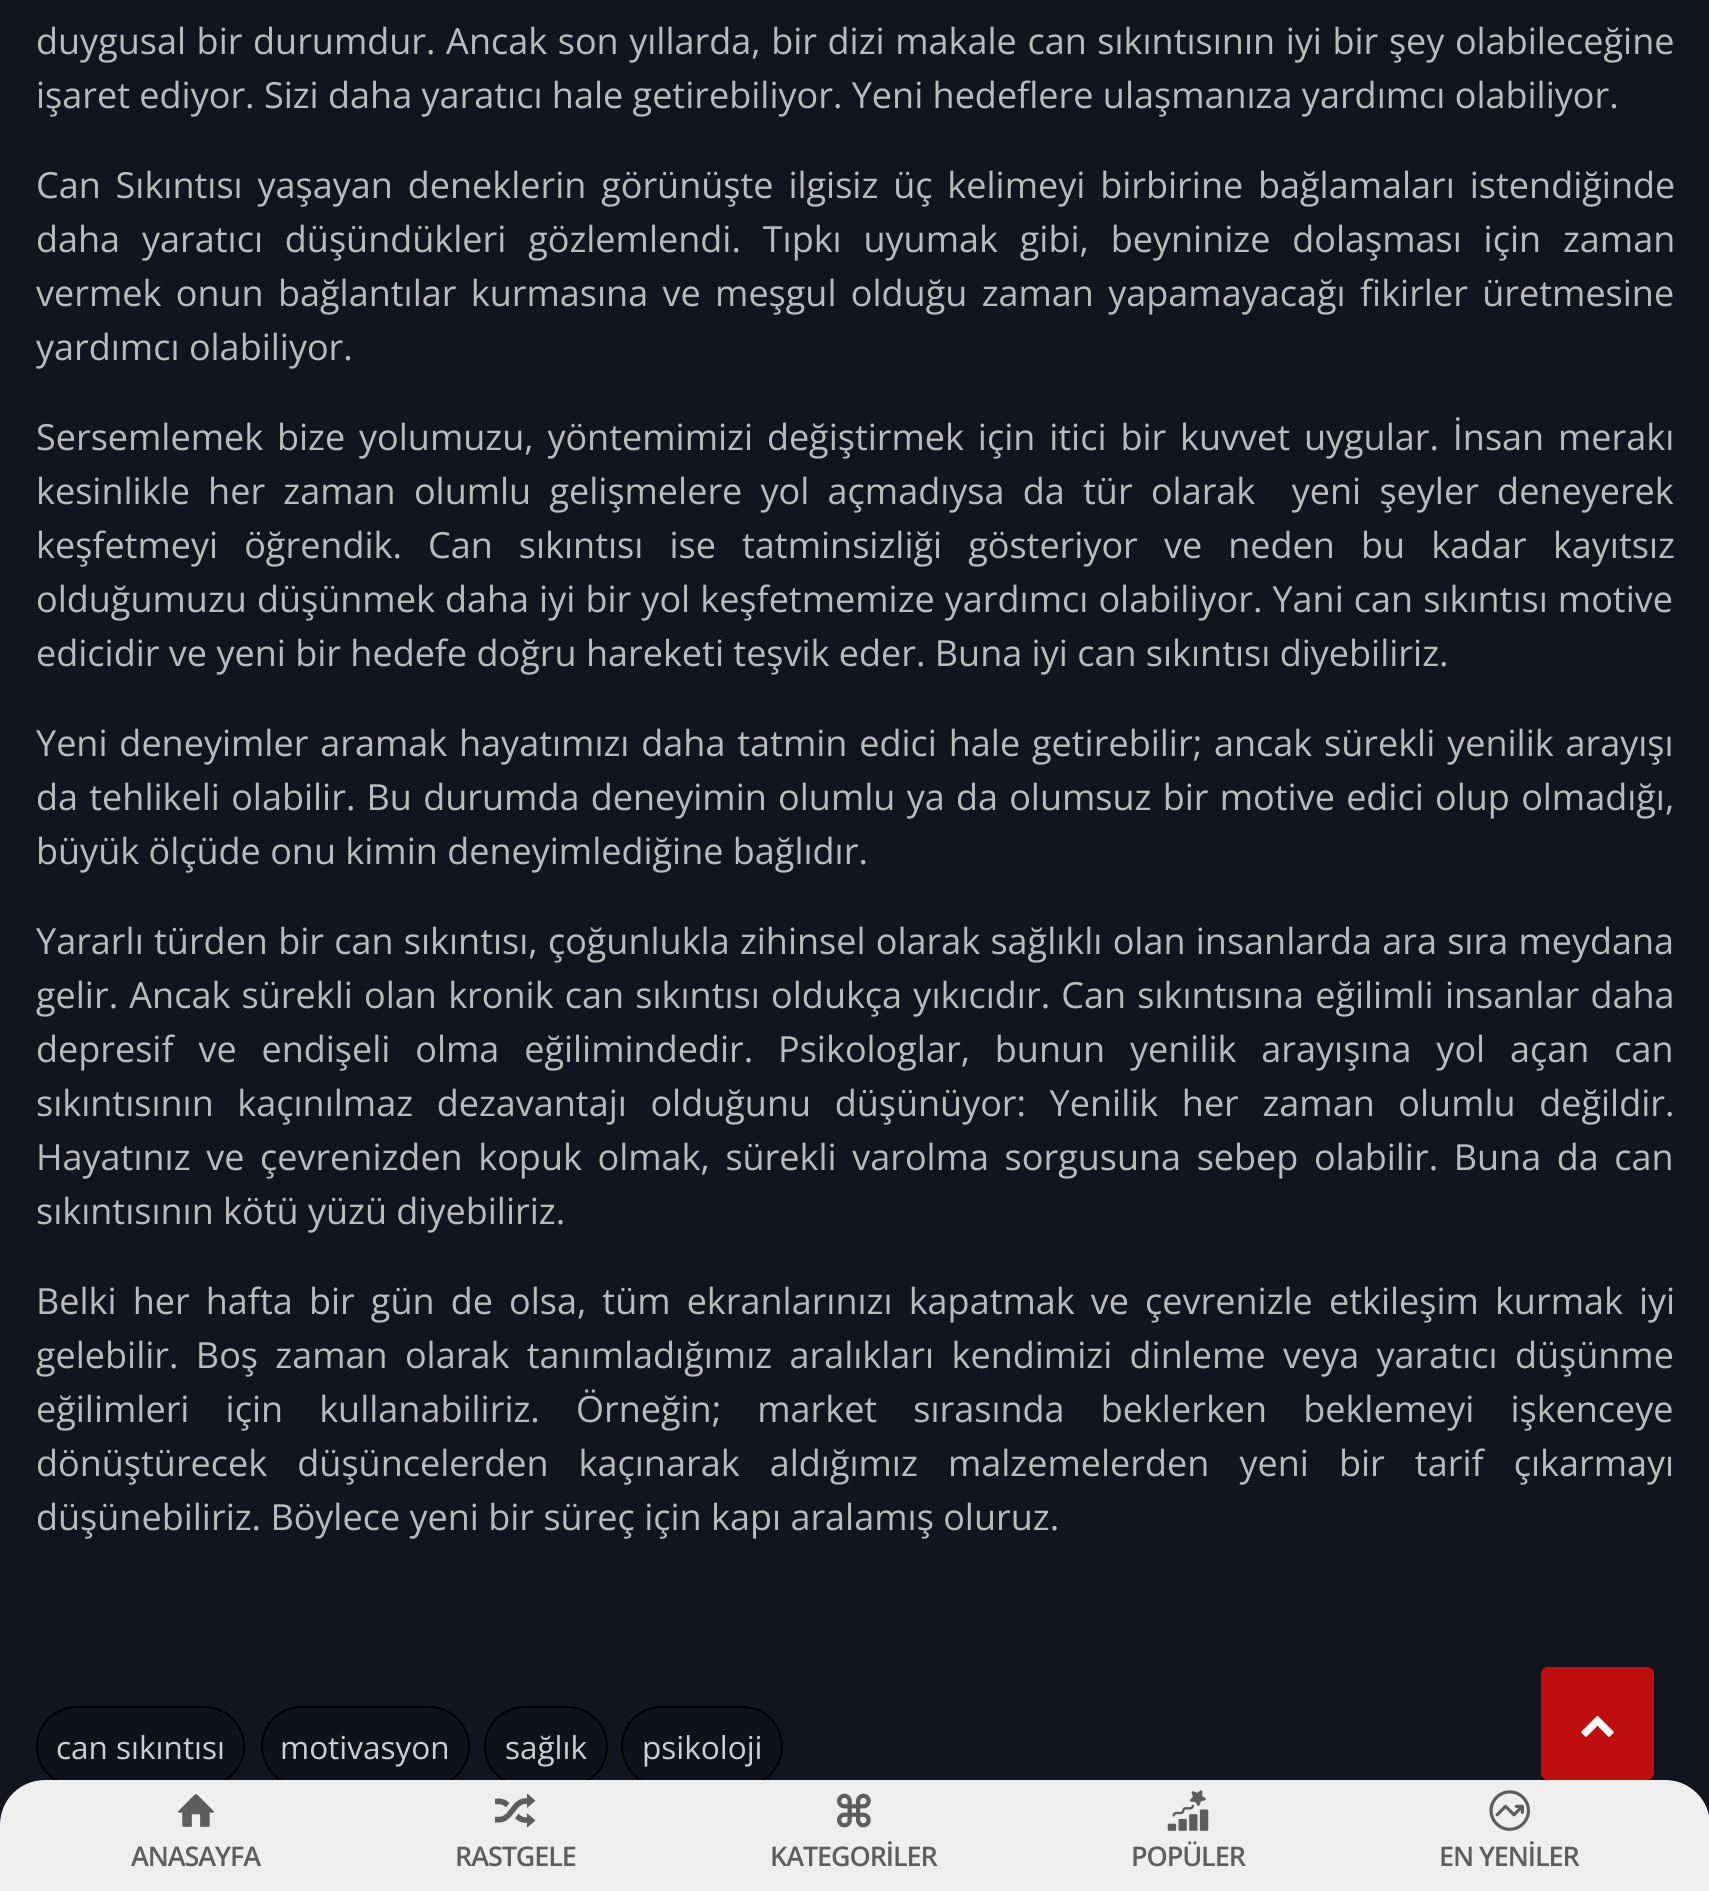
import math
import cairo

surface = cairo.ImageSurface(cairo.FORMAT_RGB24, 1709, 1891)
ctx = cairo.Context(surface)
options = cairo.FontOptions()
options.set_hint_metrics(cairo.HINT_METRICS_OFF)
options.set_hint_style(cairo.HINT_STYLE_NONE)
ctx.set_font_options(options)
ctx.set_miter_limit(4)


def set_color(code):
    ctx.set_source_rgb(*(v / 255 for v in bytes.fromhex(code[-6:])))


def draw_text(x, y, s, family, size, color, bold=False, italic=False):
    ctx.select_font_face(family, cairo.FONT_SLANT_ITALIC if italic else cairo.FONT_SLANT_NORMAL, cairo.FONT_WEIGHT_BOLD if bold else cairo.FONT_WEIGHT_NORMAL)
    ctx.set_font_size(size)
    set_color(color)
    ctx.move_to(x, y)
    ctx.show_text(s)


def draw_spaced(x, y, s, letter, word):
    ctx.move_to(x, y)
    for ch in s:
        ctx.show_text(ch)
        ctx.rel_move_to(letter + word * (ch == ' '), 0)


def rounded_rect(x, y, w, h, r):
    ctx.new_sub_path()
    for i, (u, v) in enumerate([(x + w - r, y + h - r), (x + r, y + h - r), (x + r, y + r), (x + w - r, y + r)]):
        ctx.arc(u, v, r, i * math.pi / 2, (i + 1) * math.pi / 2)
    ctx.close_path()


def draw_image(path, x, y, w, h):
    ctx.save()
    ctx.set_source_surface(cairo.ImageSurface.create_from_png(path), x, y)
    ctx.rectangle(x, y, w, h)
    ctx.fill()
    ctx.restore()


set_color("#121420")
ctx.paint()
ctx.select_font_face("Open Sans")
ctx.set_font_size(36)
set_color("#bbbbbb")
draw_spaced(36, 54, "duygusal bir durumdur. Ancak son yıllarda, bir dizi makale can sıkıntısının iyi bir şey olabileceğine", 0, 1.25)
draw_text(36, 108, "işaret ediyor. Sizi daha yaratıcı hale getirebiliyor. Yeni hedeflere ulaşmanıza yardımcı olabiliyor.", "Open Sans", 36, "#bbbbbb")
draw_spaced(36, 198, "Can Sıkıntısı yaşayan deneklerin görünüşte ilgisiz üç kelimeyi birbirine bağlamaları istendiğinde", 0, 5.5)
draw_spaced(36, 252, "daha yaratıcı düşündükleri gözlemlendi. Tıpkı uyumak gibi, beyninize dolaşması için zaman", 0, 12.5)
draw_spaced(36, 306, "vermek onun bağlantılar kurmasına ve meşgul olduğu zaman yapamayacağı fikirler üretmesine", 0, 5)
draw_text(36, 360, "yardımcı olabiliyor.", "Open Sans", 36, "#bbbbbb")
draw_spaced(36, 450, "Sersemlemek bize yolumuzu, yöntemimizi değiştirmek için itici bir kuvvet uygular. İnsan merakı", 0, 4.5)
draw_spaced(36, 504, "kesinlikle her zaman olumlu gelişmelere yol açmadıysa da tür olarak  yeni şeyler deneyerek", 0, 8.9)
draw_spaced(36, 558, "keşfetmeyi öğrendik. Can sıkıntısı ise tatminsizliği gösteriyor ve neden bu kadar kayıtsız", 0, 16.75)
draw_spaced(36, 612, "olduğumuzu düşünmek daha iyi bir yol keşfetmemize yardımcı olabiliyor. Yani can sıkıntısı motive", 0, 0.75)
draw_text(36, 666, "edicidir ve yeni bir hedefe doğru hareketi teşvik eder. Buna iyi can sıkıntısı diyebiliriz.", "Open Sans", 36, "#bbbbbb")
draw_spaced(36, 756, "Yeni deneyimler aramak hayatımızı daha tatmin edici hale getirebilir; ancak sürekli yenilik arayışı", 0, 2.5)
draw_spaced(36, 810, "da tehlikeli olabilir. Bu durumda deneyimin olumlu ya da olumsuz bir motive edici olup olmadığı,", 0, 1.9)
draw_text(36, 864, "büyük ölçüde onu kimin deneyimlediğine bağlıdır.", "Open Sans", 36, "#bbbbbb")
draw_spaced(36, 954, "Yararlı türden bir can sıkıntısı, çoğunlukla zihinsel olarak sağlıklı olan insanlarda ara sıra meydana", 0, 0.9)
draw_spaced(36, 1008, "gelir. Ancak sürekli olan kronik can sıkıntısı oldukça yıkıcıdır. Can sıkıntısına eğilimli insanlar daha", 0, 1.9)
draw_spaced(36, 1062, "depresif ve endişeli olma eğilimindedir. Psikologlar, bunun yenilik arayışına yol açan can", 0, 15.5)
draw_spaced(36, 1116, "sıkıntısının kaçınılmaz dezavantajı olduğunu düşünüyor: Yenilik her zaman olumlu değildir.", 0, 14.25)
draw_spaced(36, 1170, "Hayatınız ve çevrenizden kopuk olmak, sürekli varolma sorgusuna sebep olabilir. Buna da can", 0, 6.25)
draw_text(36, 1224, "sıkıntısının kötü yüzü diyebiliriz.", "Open Sans", 36, "#bbbbbb")
draw_spaced(36, 1314, "Belki her hafta bir gün de olsa, tüm ekranlarınızı kapatmak ve çevrenizle etkileşim kurmak iyi", 0, 6.75)
draw_spaced(36, 1368, "gelebilir. Boş zaman olarak tanımladığımız aralıkları kendimizi dinleme veya yaratıcı düşünme", 0, 8)
draw_spaced(36, 1422, "eğilimleri için kullanabiliriz. Örneğin; market sırasında beklerken beklemeyi işkenceye", 0, 26.75)
draw_spaced(36, 1476, "dönüştürecek düşüncelerden kaçınarak aldığımız malzemelerden yeni bir tarif çıkarmayı", 0, 20.75)
draw_text(36, 1530, "düşünebiliriz. Böylece yeni bir süreç için kapı aralamış oluruz.", "Open Sans", 36, "#bbbbbb")
set_color("#0f111b")
rounded_rect(37, 1707, 207, 79, 39.5)
ctx.fill_preserve()
set_color("#000000")
ctx.stroke()
draw_text(56, 1759, "can sıkıntısı", "Open Sans", 31.5, "#cfcfcf")
set_color("#0f111b")
rounded_rect(262, 1707, 207, 79, 39.5)
ctx.fill_preserve()
set_color("#000000")
ctx.stroke()
draw_text(280, 1759, "motivasyon", "Open Sans", 31.5, "#cfcfcf")
set_color("#0f111b")
rounded_rect(485, 1707, 122, 79, 39.5)
ctx.fill_preserve()
set_color("#000000")
ctx.stroke()
draw_text(505, 1759, "sağlık", "Open Sans", 31.5, "#cfcfcf")
set_color("#0f111b")
rounded_rect(622, 1707, 160, 79, 39.5)
ctx.fill_preserve()
set_color("#000000")
ctx.stroke()
draw_text(642, 1759, "psikoloji", "Open Sans", 31.5, "#cfcfcf")
set_color("#c00d0e")
rounded_rect(1541, 1667, 113, 113, 7)
ctx.fill()
draw_image("assets/img1.png", 1581, 1716, 33, 21)
set_color("#eeeeee")
ctx.new_path()
ctx.move_to(45, 1780)
ctx.line_to(1665, 1780)
ctx.curve_to(1690, 1780, 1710, 1800, 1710, 1825)
ctx.line_to(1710, 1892)
ctx.line_to(0, 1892)
ctx.line_to(0, 1825)
ctx.curve_to(0, 1800, 20, 1780, 45, 1780)
ctx.close_path()
ctx.fill()
draw_image("assets/img2.png", 177, 1794, 38, 33)
ctx.select_font_face("Open Sans SemiBold")
ctx.set_font_size(27)
set_color("#5d5d5d")
draw_spaced(131, 1866, "ANASAYFA", -1.1, 0)
draw_image("assets/img3.png", 495, 1793, 41, 35)
draw_spaced(455, 1866, "RASTGELE", -1.1, 0)
draw_image("assets/img4.png", 837, 1793, 34, 35)
draw_spaced(770, 1866, "KATEGORİLER", -1.1, 0)
draw_image("assets/img5.png", 1167, 1790, 42, 41)
draw_spaced(1131, 1866, "POPÜLER", -1.1, 0)
draw_image("assets/img6.png", 1489, 1790, 41, 41)
draw_spaced(1439, 1866, "EN YENİLER", -1.1, 0)
surface.write_to_png("output.png")
